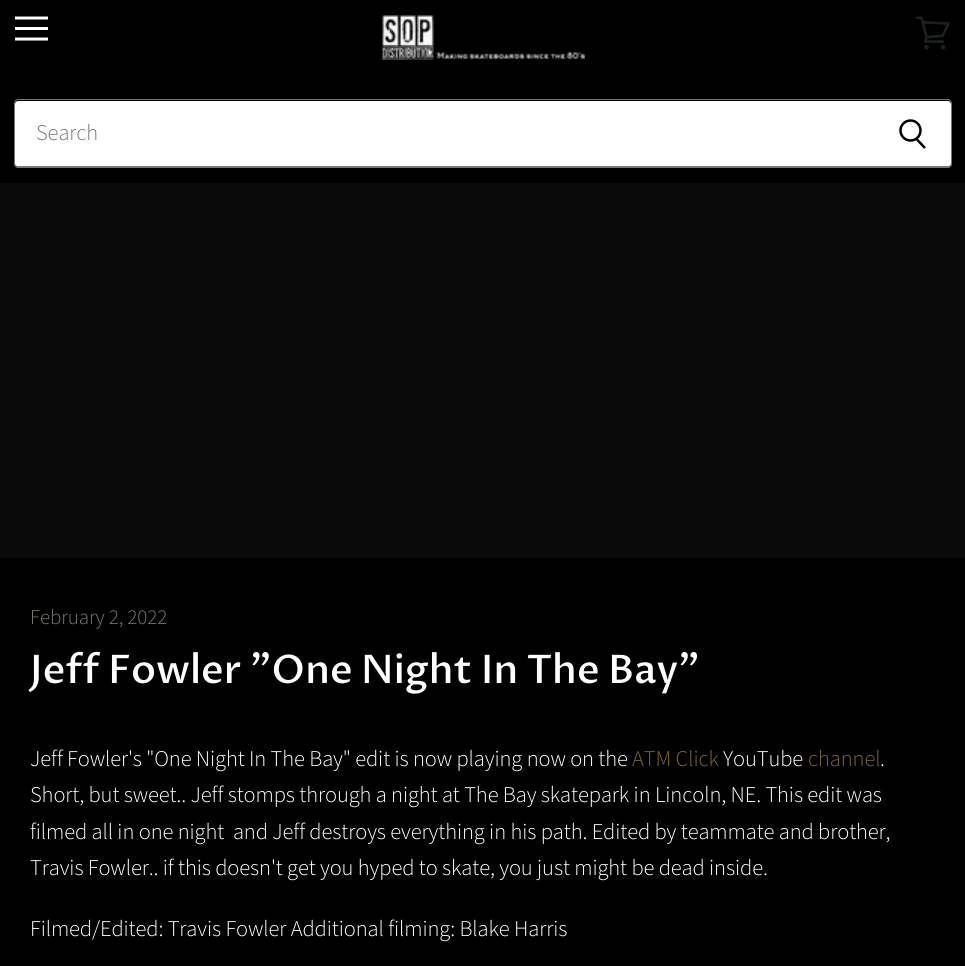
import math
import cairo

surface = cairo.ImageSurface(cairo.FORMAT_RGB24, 965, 966)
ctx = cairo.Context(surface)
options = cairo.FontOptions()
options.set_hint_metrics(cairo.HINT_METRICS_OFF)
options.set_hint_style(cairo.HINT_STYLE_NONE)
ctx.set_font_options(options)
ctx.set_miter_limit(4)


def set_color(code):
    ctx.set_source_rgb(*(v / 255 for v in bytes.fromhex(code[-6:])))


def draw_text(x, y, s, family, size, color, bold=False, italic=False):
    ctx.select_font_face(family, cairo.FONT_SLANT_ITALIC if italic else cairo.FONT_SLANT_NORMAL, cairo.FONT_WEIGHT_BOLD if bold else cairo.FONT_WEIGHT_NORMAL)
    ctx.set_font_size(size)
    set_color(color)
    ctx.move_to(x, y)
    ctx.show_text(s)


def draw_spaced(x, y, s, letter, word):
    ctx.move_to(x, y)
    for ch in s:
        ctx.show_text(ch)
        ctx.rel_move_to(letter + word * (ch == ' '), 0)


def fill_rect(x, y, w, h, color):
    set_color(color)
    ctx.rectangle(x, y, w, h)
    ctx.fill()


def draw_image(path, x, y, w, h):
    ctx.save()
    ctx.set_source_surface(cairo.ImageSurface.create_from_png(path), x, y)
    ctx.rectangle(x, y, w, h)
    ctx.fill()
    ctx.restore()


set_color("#000000")
ctx.paint()
ctx.new_path()
ctx.move_to(46.5, 18)
ctx.line_to(16.5, 18)
set_color("#ffffff")
ctx.set_line_width(3)
ctx.set_line_cap(cairo.LINE_CAP_SQUARE)
ctx.set_line_join(cairo.LINE_JOIN_ROUND)
ctx.stroke()
fill_rect(15, 27, 33, 3, "#ffffff")
ctx.new_path()
ctx.move_to(46.5, 39)
ctx.line_to(16.5, 39)
ctx.stroke()
draw_image("assets/img1.png", 916, 16, 35, 34)
draw_image("assets/img2.png", 381, 15, 204, 45)
ctx.new_path()
ctx.move_to(18, 101)
ctx.line_to(873, 101)
ctx.line_to(873, 167)
ctx.line_to(18, 167)
ctx.curve_to(16.5, 167, 15, 165.5, 15, 164)
ctx.line_to(15, 104)
ctx.curve_to(15, 102.5, 16.5, 101, 18, 101)
ctx.close_path()
ctx.fill()
set_color("#777777")
ctx.set_fill_rule(cairo.FILL_RULE_EVEN_ODD)
ctx.new_path()
ctx.move_to(18, 99)
ctx.line_to(873, 99)
ctx.line_to(873, 168)
ctx.line_to(18, 168)
ctx.curve_to(16, 168, 14, 166, 14, 164)
ctx.line_to(14, 104)
ctx.curve_to(14, 101, 16, 99, 18, 99)
ctx.close_path()
ctx.move_to(18, 100)
ctx.line_to(873, 100)
ctx.line_to(873, 166)
ctx.line_to(18, 166)
ctx.curve_to(16, 166, 15, 165, 15, 164)
ctx.line_to(15, 104)
ctx.curve_to(15, 102, 16, 100, 18, 100)
ctx.close_path()
ctx.fill()
ctx.select_font_face("Source Sans Pro Light")
ctx.set_font_size(22.5)
set_color("#767a79")
draw_spaced(36, 140, "Search", -0.1, 0)
set_color("#ffffff")
ctx.new_path()
ctx.move_to(873, 101)
ctx.line_to(948, 101)
ctx.curve_to(949.5, 101, 951, 102.5, 951, 104)
ctx.line_to(951, 164)
ctx.curve_to(951, 165.5, 949.5, 167, 948, 167)
ctx.line_to(873, 167)
ctx.close_path()
ctx.fill()
set_color("#777777")
ctx.new_path()
ctx.move_to(873, 99)
ctx.line_to(948, 99)
ctx.curve_to(950, 99, 952, 101, 952, 104)
ctx.line_to(952, 164)
ctx.curve_to(952, 166, 950, 168, 948, 168)
ctx.line_to(873, 168)
ctx.close_path()
ctx.move_to(873, 100)
ctx.line_to(948, 100)
ctx.curve_to(950, 100, 951, 102, 951, 104)
ctx.line_to(951, 164)
ctx.curve_to(951, 165, 950, 166, 948, 166)
ctx.line_to(873, 166)
ctx.close_path()
ctx.fill()
ctx.new_path()
ctx.move_to(925, 148)
ctx.line_to(916.5, 139)
set_color("#000000")
ctx.set_line_width(2.5)
ctx.set_line_cap(cairo.LINE_CAP_BUTT)
ctx.set_line_join(cairo.LINE_JOIN_MITER)
ctx.stroke()
ctx.arc(910.5, 130.5, 10, 0, 2 * math.pi)
ctx.stroke()
fill_rect(0, 183, 965, 375, "#0a0a0a")
ctx.set_font_size(21)
set_color("#7c7873")
draw_spaced(30, 624, "February 2, 2022", -0.1, 0)
draw_text(30, 683, "Jeff Fowler \"One Night In The Bay\"", "Proza Libre Medium", 39.4, "#ffffff")
ctx.select_font_face("Source Sans Pro Light")
ctx.set_font_size(22.5)
draw_spaced(30, 766, "Jeff Fowler's \"One Night In The Bay\" edit is now playing now on the", -0.1, 0)
set_color("#816339")
draw_spaced(632, 766, "ATM Click", -0.1, 0)
set_color("#ffffff")
draw_spaced(723, 766, "YouTube", -0.1, 0)
set_color("#816339")
draw_spaced(808, 766, "channel", -0.1, 0)
set_color("#ffffff")
draw_spaced(880, 766, ".", -0.1, 0)
draw_spaced(30, 802, "Short, but sweet.. Jeff stomps through a night at The Bay skatepark in Lincoln, NE. This edit was", -0.1, 0)
draw_spaced(30, 839, "filmed all in one night  and Jeff destroys everything in his path. Edited by teammate and brother,", -0.1, 0)
draw_spaced(30, 875, "Travis Fowler.. if this doesn't get you hyped to skate, you just might be dead inside.", -0.1, 0)
draw_spaced(30, 936, "Filmed/Edited: Travis Fowler Additional filming: Blake Harris", -0.1, 0)
surface.write_to_png("output.png")
